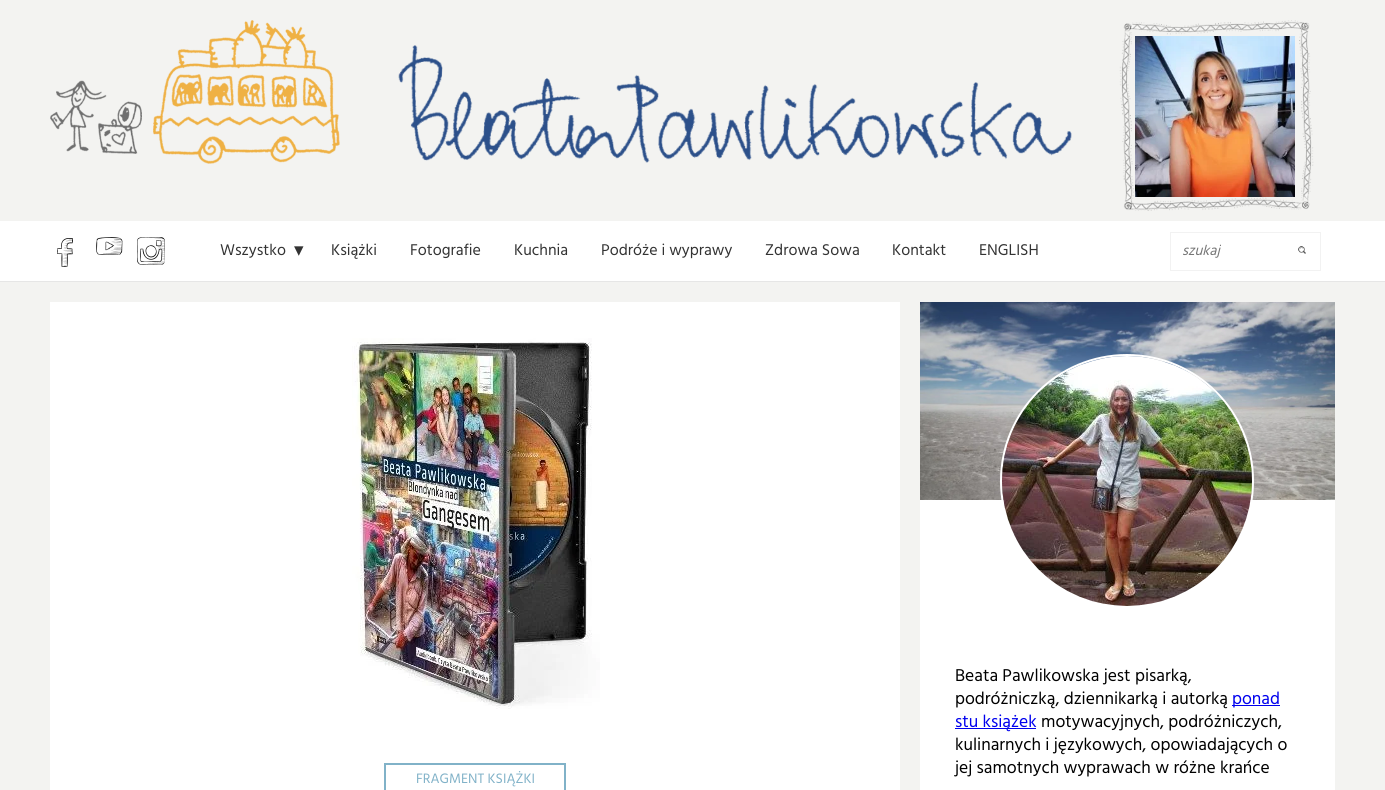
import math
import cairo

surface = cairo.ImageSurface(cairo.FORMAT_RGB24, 1385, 790)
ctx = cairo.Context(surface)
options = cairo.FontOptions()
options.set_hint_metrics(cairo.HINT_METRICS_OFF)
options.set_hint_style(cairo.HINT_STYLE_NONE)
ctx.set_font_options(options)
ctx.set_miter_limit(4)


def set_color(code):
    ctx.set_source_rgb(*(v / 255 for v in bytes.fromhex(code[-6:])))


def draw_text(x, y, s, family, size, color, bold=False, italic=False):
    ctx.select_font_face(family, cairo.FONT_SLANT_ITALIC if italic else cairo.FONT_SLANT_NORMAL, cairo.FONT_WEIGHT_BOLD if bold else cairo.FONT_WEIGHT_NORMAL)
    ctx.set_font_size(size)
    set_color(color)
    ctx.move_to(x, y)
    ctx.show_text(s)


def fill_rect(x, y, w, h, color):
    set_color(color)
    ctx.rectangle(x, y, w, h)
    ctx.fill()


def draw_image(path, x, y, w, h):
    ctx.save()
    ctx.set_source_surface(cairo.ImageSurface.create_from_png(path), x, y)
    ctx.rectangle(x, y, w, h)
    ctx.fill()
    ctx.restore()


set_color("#f3f3f1")
ctx.paint()
draw_image("assets/img1.png", 50, 20, 290, 144)
draw_image("assets/img2.png", 398, 45, 674, 118)
draw_image("assets/img4.png", 1135, 36, 160, 161)
draw_image("assets/img3.png", 1119, 20, 195, 191)
fill_rect(0, 221, 1385, 60, "#ffffff")
fill_rect(0, 281, 1385, 1, "#e6e6e6")
draw_image("assets/img5.png", 57, 238, 16, 29)
draw_image("assets/img6.png", 96, 237, 27, 18)
draw_image("assets/img7.png", 137, 237, 28, 28)
draw_text(220, 255, "Wszystko", "Hind", 16, "#333333")
draw_text(294, 256, "▾", "DejaVu Sans", 19, "#333333")
draw_text(331, 255, "Książki", "Hind", 16, "#333333")
draw_text(410, 255, "Fotografie", "Hind", 16, "#333333")
draw_text(514, 255, "Kuchnia", "Hind", 16, "#333333")
draw_text(601, 255, "Podróże i wyprawy", "Hind", 16, "#333333")
draw_text(765, 255, "Zdrowa Sowa", "Hind", 16, "#333333")
draw_text(892, 255, "Kontakt", "Hind", 16, "#333333")
draw_text(979, 255, "ENGLISH", "Hind", 16, "#333333")
ctx.rectangle(1170.5, 232.5, 150, 38)
set_color("#f2f2f2")
ctx.set_line_width(1)
ctx.stroke()
draw_text(1182, 255, "szukaj", "Hind", 14.5, "#757575", italic=True)
draw_image("assets/img8.png", 1298, 246, 8, 8)
fill_rect(920, 500, 415, 290, "#ffffff")
draw_image("assets/img9.png", 920, 302, 415, 198)
ctx.arc(1127, 481, 126, 0, 2 * math.pi)
ctx.set_line_width(2)
ctx.stroke()
draw_image("assets/img10.png", 1002, 356, 250, 250)
draw_text(955, 681, "Beata Pawlikowska jest pisarką,", "Hind", 17.6, "#000000")
draw_text(955, 704, "podróżniczką, dziennikarką i autorką", "Hind", 17.6, "#000000")
fill_rect(1232, 705, 48, 1, "#0000ee")
draw_text(1232, 704, "ponad", "Hind", 17.6, "#0000ee")
fill_rect(955, 728, 81, 1, "#0000ee")
draw_text(955, 727, "stu książek", "Hind", 17.6, "#0000ee")
draw_text(1041, 727, "motywacyjnych, podróżniczych,", "Hind", 17.6, "#000000")
draw_text(955, 750, "kulinarnych i językowych, opowiadających o", "Hind", 17.6, "#000000")
draw_text(955, 773, "jej samotnych wyprawach w różne krańce", "Hind", 17.6, "#000000")
fill_rect(50, 302, 850, 488, "#ffffff")
draw_image("assets/img11.png", 352, 338, 248, 371)
ctx.rectangle(385, 764, 180, 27)
set_color("#81b2c8")
ctx.stroke()
draw_text(416, 783, "FRAGMENT KSIĄŻKI", "Hind", 14, "#81b2c8")
surface.write_to_png("output.png")
